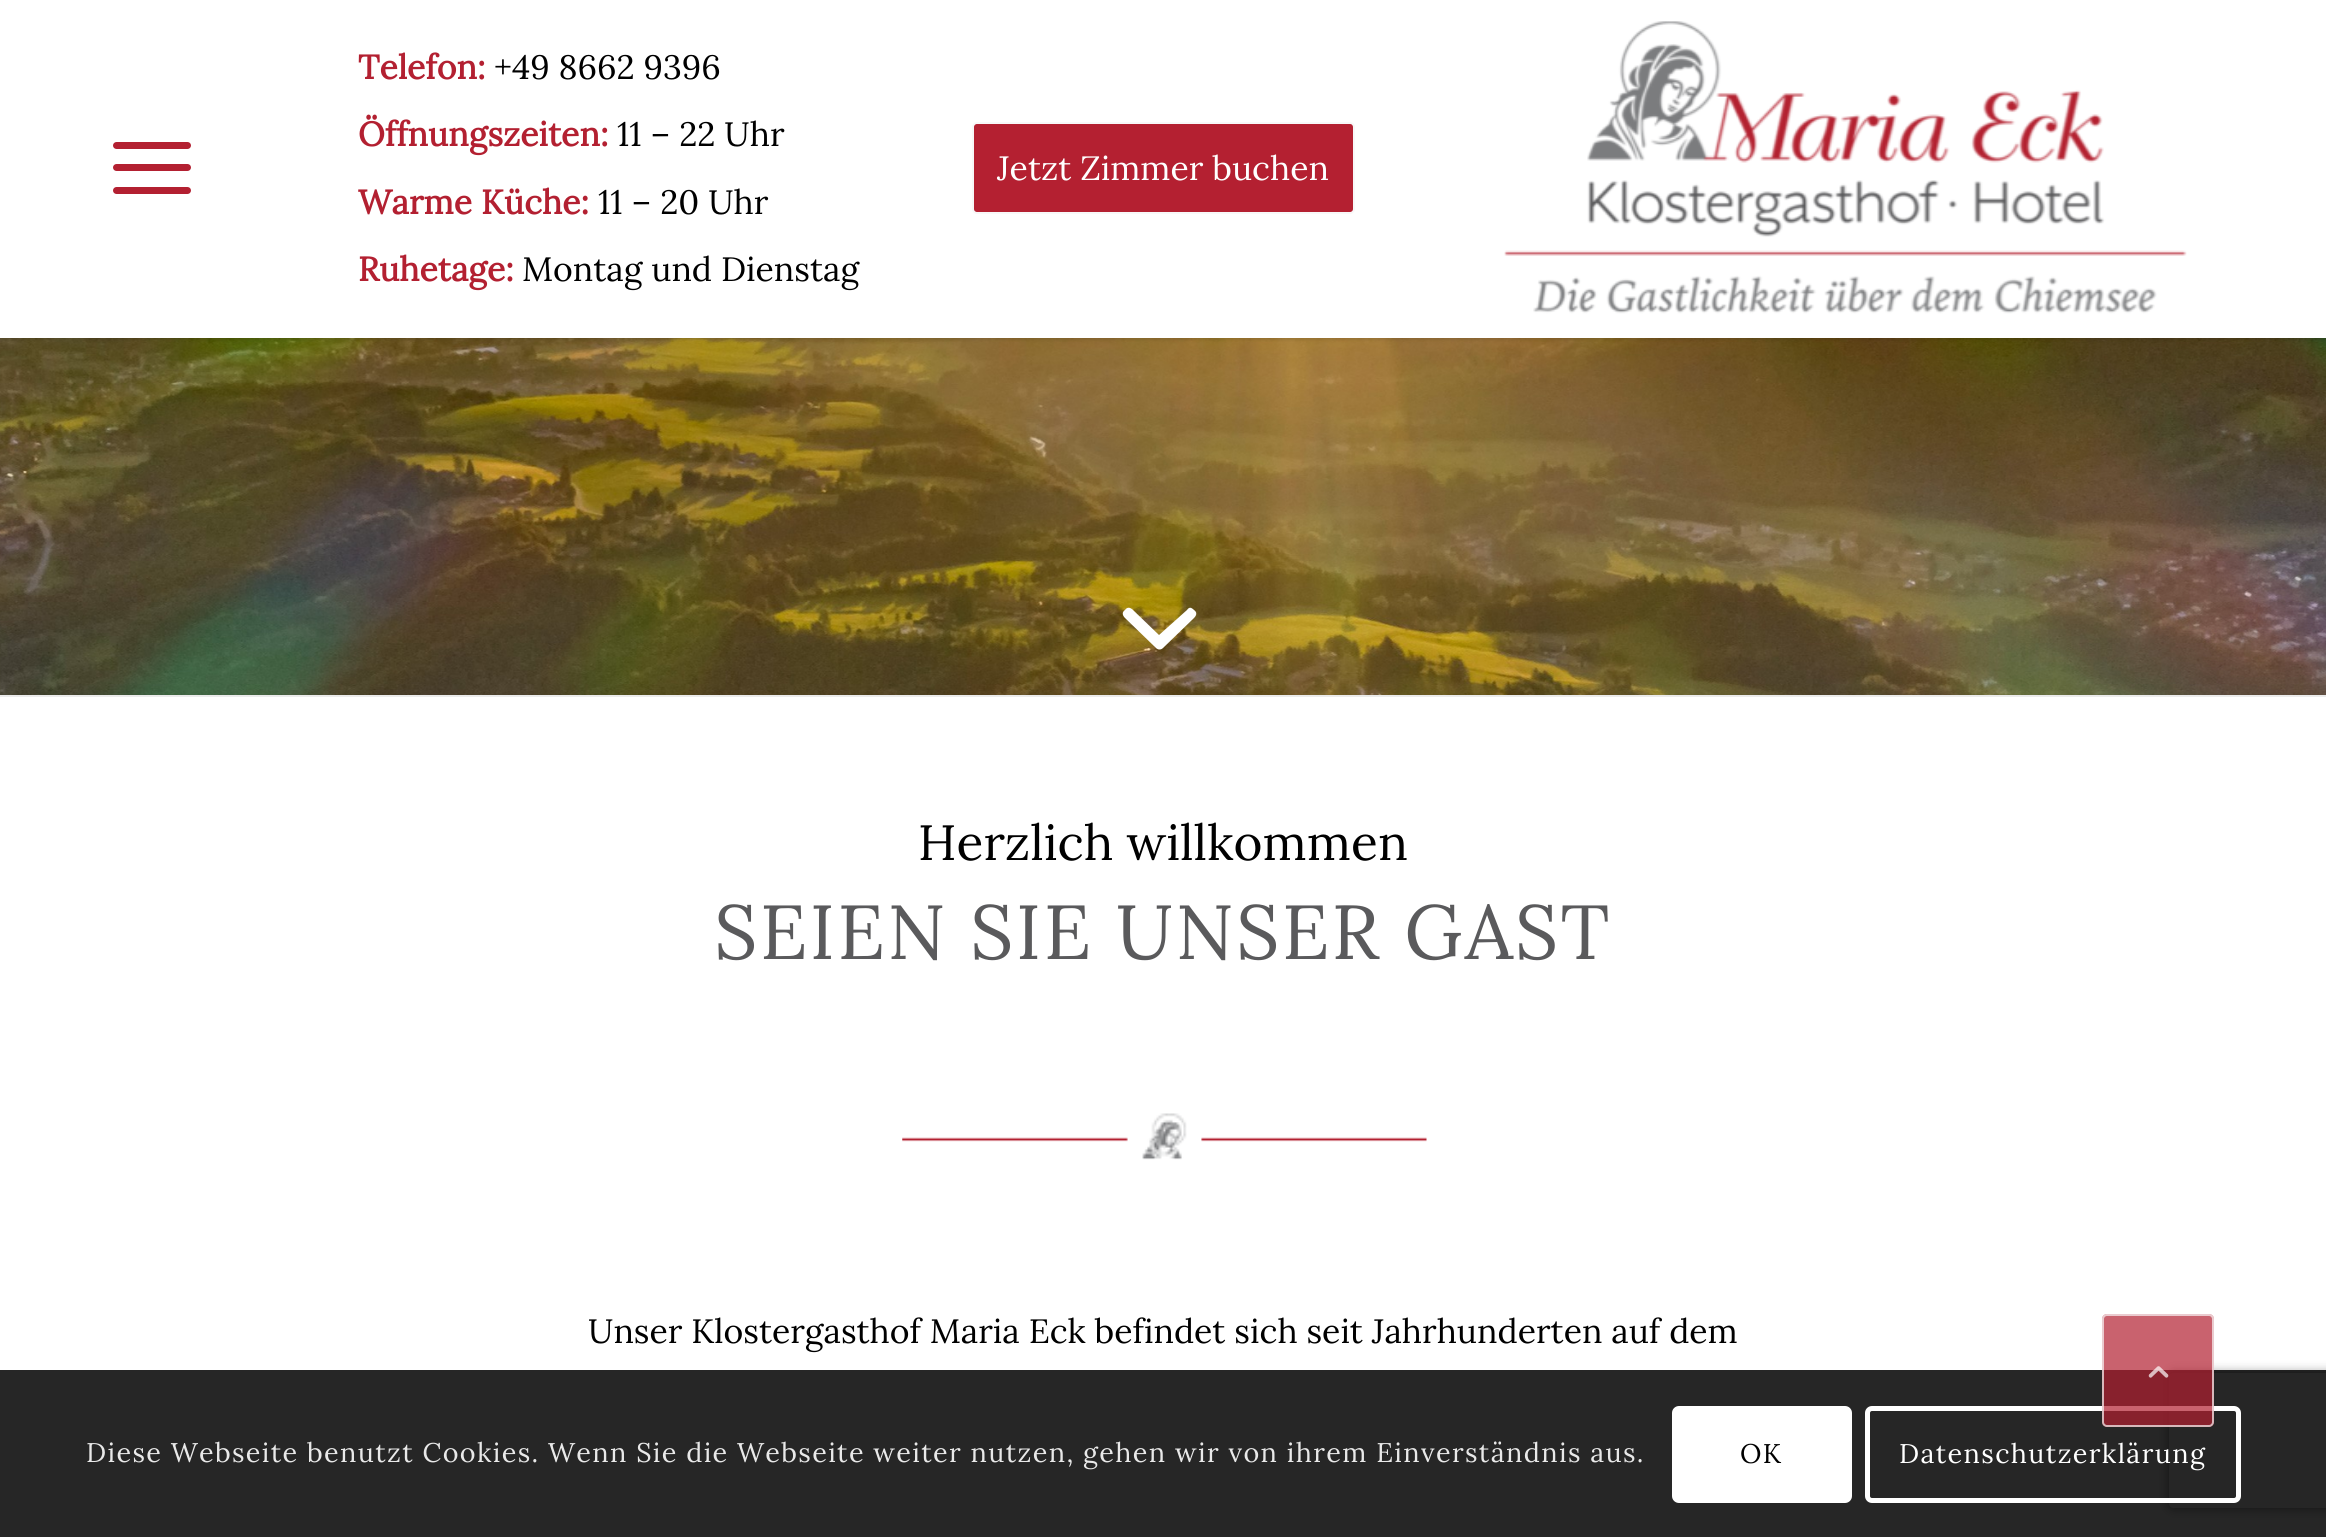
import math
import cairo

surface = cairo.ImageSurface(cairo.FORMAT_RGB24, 2326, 1537)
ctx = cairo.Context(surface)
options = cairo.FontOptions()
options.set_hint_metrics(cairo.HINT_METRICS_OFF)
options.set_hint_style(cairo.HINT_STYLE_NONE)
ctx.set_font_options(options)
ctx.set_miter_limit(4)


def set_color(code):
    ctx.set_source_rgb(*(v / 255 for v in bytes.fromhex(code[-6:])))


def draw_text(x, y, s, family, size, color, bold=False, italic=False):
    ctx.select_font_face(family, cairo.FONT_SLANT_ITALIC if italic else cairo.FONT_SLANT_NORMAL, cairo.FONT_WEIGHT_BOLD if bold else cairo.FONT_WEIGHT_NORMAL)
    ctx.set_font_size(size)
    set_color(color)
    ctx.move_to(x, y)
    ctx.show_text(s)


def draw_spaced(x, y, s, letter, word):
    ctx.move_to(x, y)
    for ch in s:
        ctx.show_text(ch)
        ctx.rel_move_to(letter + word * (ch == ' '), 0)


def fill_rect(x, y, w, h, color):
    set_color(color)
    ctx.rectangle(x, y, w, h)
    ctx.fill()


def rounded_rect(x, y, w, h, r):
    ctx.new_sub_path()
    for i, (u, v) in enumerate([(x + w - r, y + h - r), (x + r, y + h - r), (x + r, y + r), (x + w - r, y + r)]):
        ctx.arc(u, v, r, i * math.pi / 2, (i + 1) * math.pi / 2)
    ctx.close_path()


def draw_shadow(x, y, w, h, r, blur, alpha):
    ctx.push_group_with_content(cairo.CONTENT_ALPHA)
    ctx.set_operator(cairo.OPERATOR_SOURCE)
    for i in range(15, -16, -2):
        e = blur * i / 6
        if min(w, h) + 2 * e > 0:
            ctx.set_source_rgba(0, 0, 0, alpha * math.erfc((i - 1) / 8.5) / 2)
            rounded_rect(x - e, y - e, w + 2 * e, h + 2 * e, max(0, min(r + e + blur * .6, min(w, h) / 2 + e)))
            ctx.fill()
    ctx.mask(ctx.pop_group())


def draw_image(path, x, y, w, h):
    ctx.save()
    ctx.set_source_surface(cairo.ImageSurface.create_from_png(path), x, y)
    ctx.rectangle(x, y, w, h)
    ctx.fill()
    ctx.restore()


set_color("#ffffff")
ctx.paint()
draw_image("assets/img2.png", 0, 338, 2326, 357)
set_color("#000000")
draw_shadow(-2, -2, 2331, 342, 0, 2, 0.1)
fill_rect(0, 0, 2326, 338, "#ffffff")
set_color("#b32031")
rounded_rect(113, 164, 78, 7, 3.5)
ctx.fill()
rounded_rect(113, 142, 78, 7, 3.5)
ctx.fill()
rounded_rect(113, 187, 78, 7, 3.5)
ctx.fill()
draw_text(358, 79, "Telefon:", "Lora", 33.75, "#b32031", bold=True)
draw_text(494, 79, "+49 8662 9396", "Lora", 33.75, "#000000")
draw_text(358, 146, "Öffnungszeiten:", "Lora", 33.75, "#b32031", bold=True)
draw_text(617, 146, "11 – 22 Uhr", "Lora", 33.75, "#000000")
draw_text(358, 214, "Warme Küche:", "Lora", 33.75, "#b32031", bold=True)
draw_text(598, 214, "11 – 20 Uhr", "Lora", 33.75, "#000000")
draw_text(358, 281, "Ruhetage:", "Lora", 33.75, "#b32031", bold=True)
draw_text(522, 281, "Montag und Dienstag", "Lora", 33.75, "#000000")
set_color("#b42031")
rounded_rect(973, 123, 381, 90, 4)
ctx.fill_preserve()
set_color("#f8f8f8")
ctx.stroke()
draw_text(997, 180, "Jetzt Zimmer buchen", "Lora", 33.75, "#ffffff")
draw_image("assets/img1.png", 1504, 21, 683, 293)
ctx.new_path()
ctx.move_to(1187, 610)
ctx.curve_to(1189, 607, 1191, 607, 1194, 610)
ctx.curve_to(1197, 612, 1197, 615, 1194, 618)
ctx.line_to(1163, 648)
ctx.curve_to(1161, 650, 1158, 650, 1156, 648)
ctx.line_to(1125, 618)
ctx.curve_to(1122, 615, 1122, 612, 1125, 610)
ctx.curve_to(1127, 607, 1130, 607, 1133, 610)
ctx.line_to(1159, 635)
ctx.close_path()
ctx.fill()
fill_rect(0, 695, 2326, 2, "#ebebeb")
draw_text(918, 860, "Herzlich willkommen", "Lora", 49.5, "#000000")
ctx.set_font_size(76.5)
set_color("#5a5a5c")
draw_spaced(714, 959, "SEIEN SIE UNSER GAST", 2.25, 0)
draw_image("assets/img3.png", 902, 1113, 525, 47)
draw_text(588, 1343, "Unser Klostergasthof Maria Eck befindet sich seit Jahrhunderten auf dem", "Lora", 33.75, "#000000")
ctx.save()
ctx.set_fill_rule(cairo.FILL_RULE_EVEN_ODD)
ctx.new_path()
ctx.move_to(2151, 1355)
ctx.line_to(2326, 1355)
ctx.line_to(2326, 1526)
ctx.line_to(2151, 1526)
ctx.close_path()
ctx.move_to(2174, 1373)
ctx.line_to(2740, 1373)
ctx.curve_to(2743, 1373, 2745, 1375, 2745, 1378)
ctx.line_to(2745, 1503)
ctx.curve_to(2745, 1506, 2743, 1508, 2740, 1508)
ctx.line_to(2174, 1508)
ctx.curve_to(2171, 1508, 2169, 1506, 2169, 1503)
ctx.line_to(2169, 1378)
ctx.curve_to(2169, 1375, 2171, 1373, 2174, 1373)
ctx.close_path()
ctx.clip()
set_color("#808080")
draw_shadow(2169, 1373, 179, 135, 5, 5.5, 1)
ctx.restore()
ctx.set_source_rgba(0, 0, 0, 0.85)
ctx.rectangle(0, 1370, 2326, 167)
ctx.fill()
rounded_rect(1867.5, 1408.5, 371, 92, 4.5)
set_color("#ffffff")
ctx.set_line_width(5)
ctx.stroke()
ctx.set_source_rgba(0.702, 0.125, 0.192, 0.7)
rounded_rect(2102, 1314, 112, 113, 5)
ctx.fill()
rounded_rect(2103, 1315, 110, 111, 4)
ctx.set_source_rgba(0.973, 0.973, 0.973, 0.7)
ctx.set_line_width(2)
ctx.stroke()
draw_image("assets/img4.png", 2148, 1366, 21, 12)
ctx.set_font_size(27)
set_color("#e9e9e9")
draw_spaced(86, 1462, "Diese Webseite benutzt Cookies. Wenn Sie die Webseite weiter nutzen, gehen wir von ihrem Einverständnis aus.", 1.35, 0)
set_color("#ffffff")
rounded_rect(1672, 1406, 180, 97, 7)
ctx.fill()
set_color("#000000")
draw_spaced(1740, 1463, "OK", 1.35, 0)
set_color("#ffffff")
draw_spaced(1899, 1463, "Datenschutzerklärung", 1.35, 0)
surface.write_to_png("output.png")
